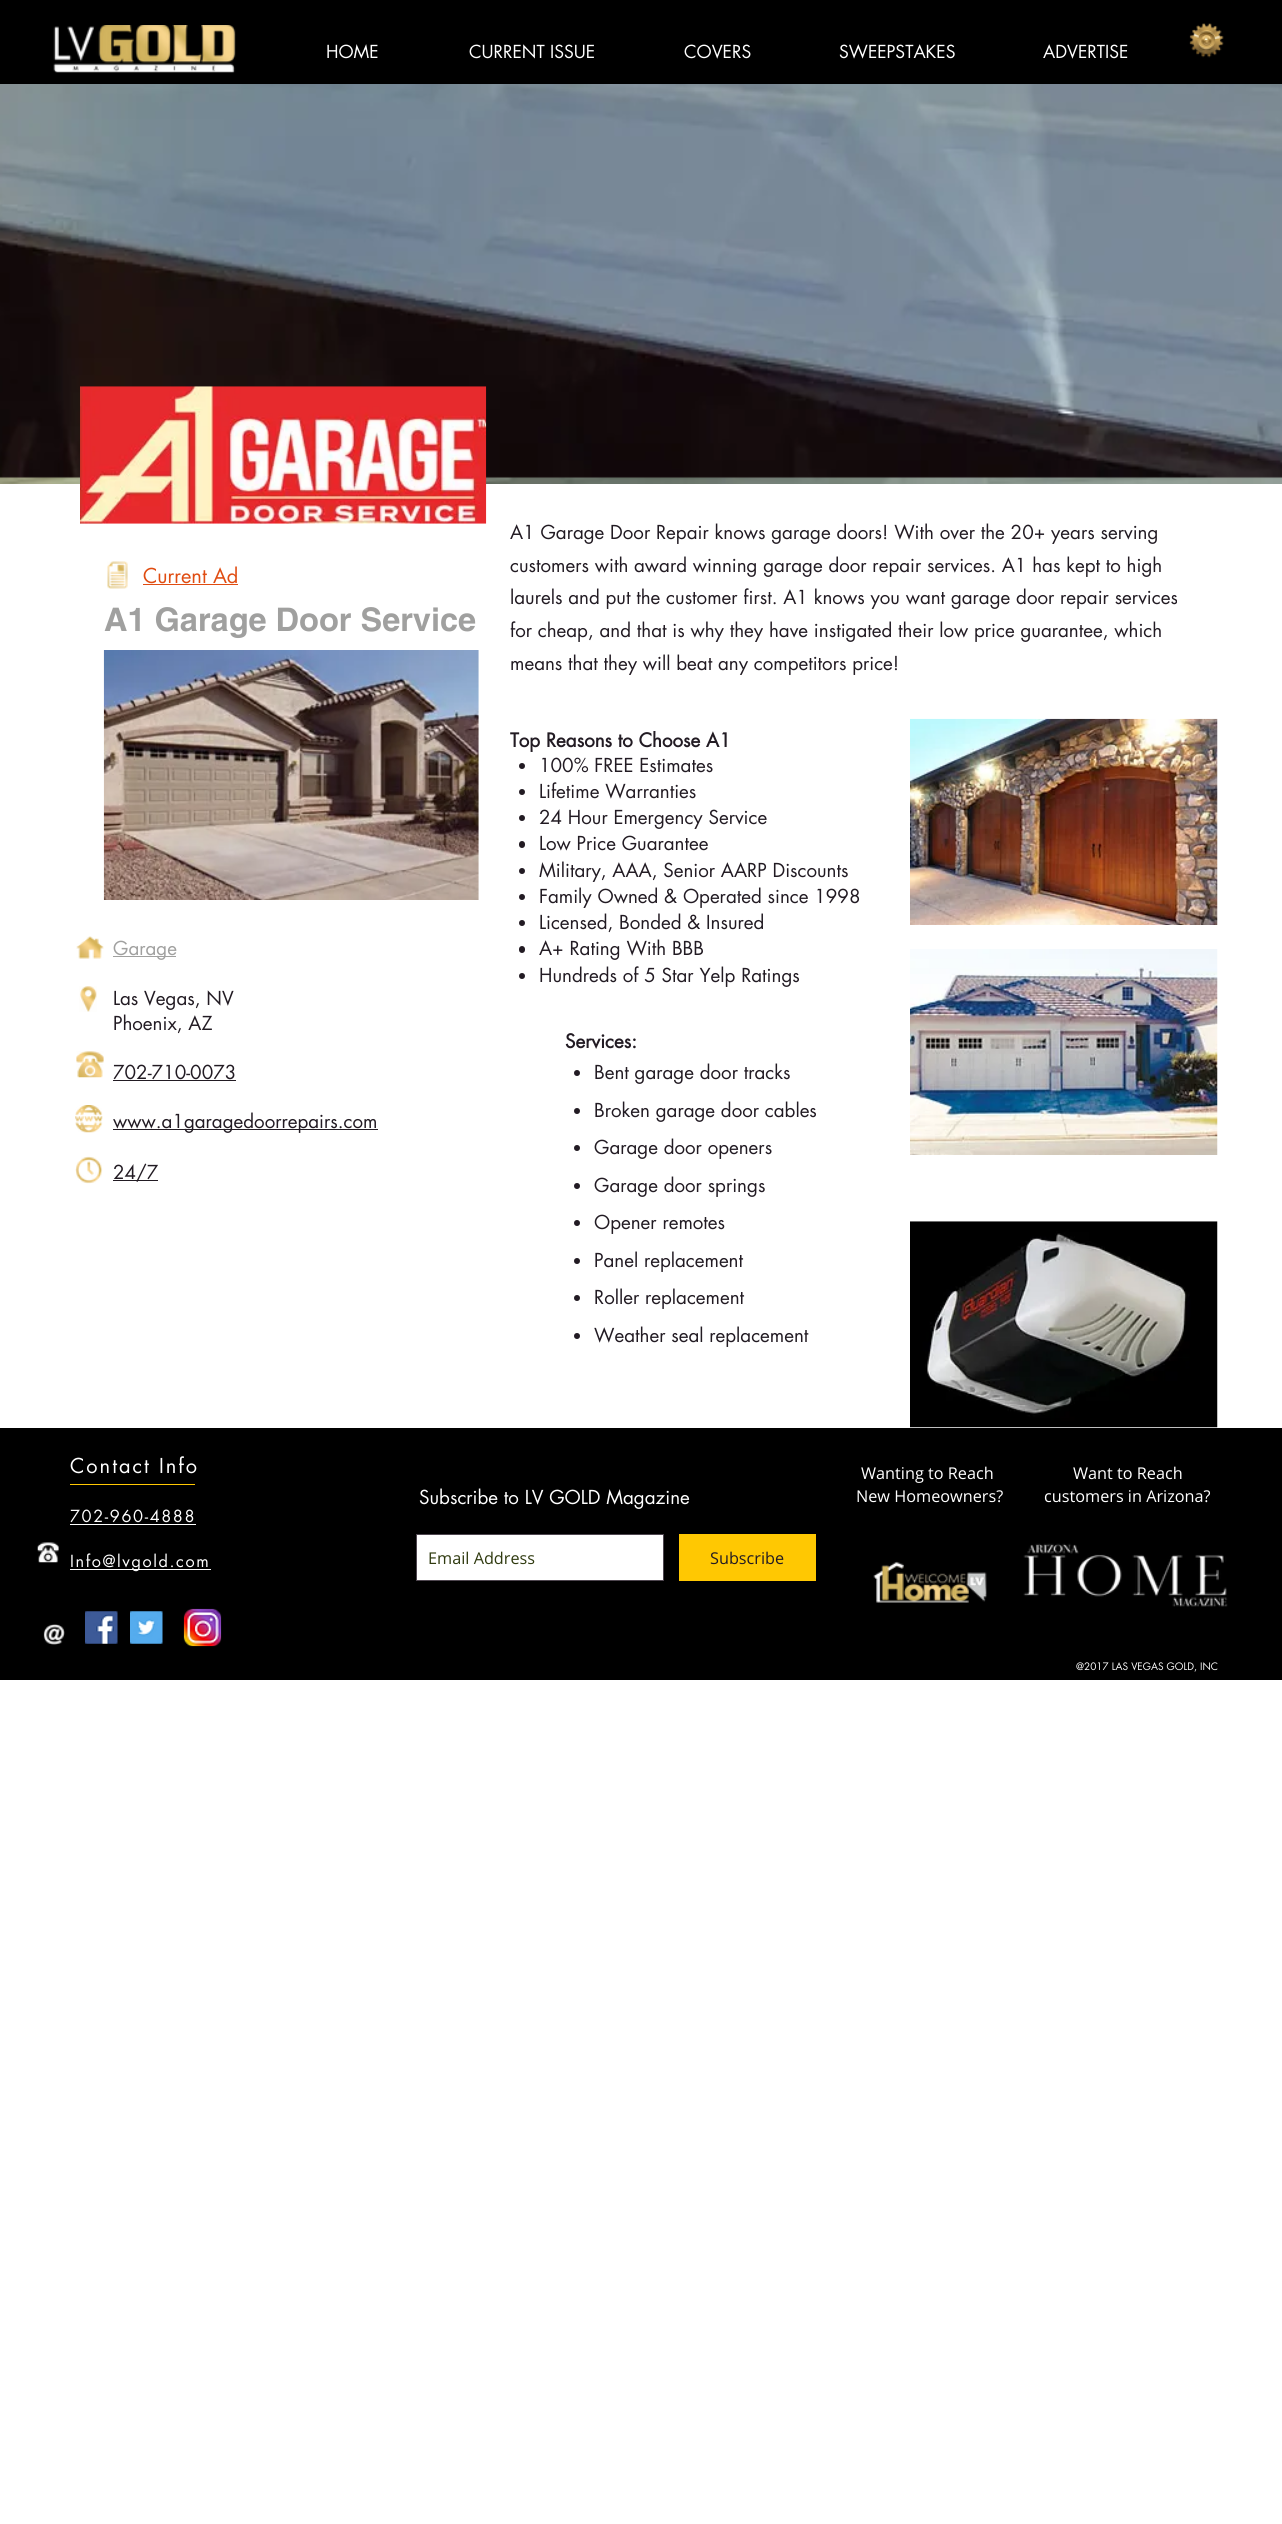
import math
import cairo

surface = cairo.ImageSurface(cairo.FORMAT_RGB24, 1282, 2524)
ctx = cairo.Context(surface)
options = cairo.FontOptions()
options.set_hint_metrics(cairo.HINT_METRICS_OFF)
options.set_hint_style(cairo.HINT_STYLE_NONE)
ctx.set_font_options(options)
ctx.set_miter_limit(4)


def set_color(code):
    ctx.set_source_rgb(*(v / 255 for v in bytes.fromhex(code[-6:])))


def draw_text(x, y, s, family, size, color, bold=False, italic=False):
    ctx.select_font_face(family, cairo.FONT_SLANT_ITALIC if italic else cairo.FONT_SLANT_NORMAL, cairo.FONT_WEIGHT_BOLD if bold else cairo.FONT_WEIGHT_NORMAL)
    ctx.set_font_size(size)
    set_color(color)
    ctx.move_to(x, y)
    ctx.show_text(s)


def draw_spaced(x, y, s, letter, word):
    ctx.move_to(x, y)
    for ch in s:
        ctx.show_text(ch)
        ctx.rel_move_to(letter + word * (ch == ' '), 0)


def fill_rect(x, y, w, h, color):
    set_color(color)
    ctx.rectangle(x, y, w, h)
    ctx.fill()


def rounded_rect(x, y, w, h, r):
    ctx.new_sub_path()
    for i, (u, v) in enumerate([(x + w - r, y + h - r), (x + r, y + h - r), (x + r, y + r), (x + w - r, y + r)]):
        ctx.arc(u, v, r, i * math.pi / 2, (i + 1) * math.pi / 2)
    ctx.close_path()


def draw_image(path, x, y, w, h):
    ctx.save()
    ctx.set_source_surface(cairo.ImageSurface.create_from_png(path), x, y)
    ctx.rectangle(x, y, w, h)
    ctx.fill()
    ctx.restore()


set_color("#ffffff")
ctx.paint()
fill_rect(0, 0, 1282, 84, "#000000")
draw_image("assets/img1.png", 53, 25, 183, 48)
draw_text(326, 58, "HOME", "futura", 17.5, "#ffffff")
draw_text(469, 58, "CURRENT ISSUE", "futura", 17.5, "#ffffff")
draw_text(684, 58, "COVERS", "futura", 17.5, "#ffffff")
draw_text(839, 58, "SWEEPSTAKES", "futura", 17.5, "#ffffff")
draw_text(1043, 58, "ADVERTISE", "futura", 17.5, "#ffffff")
draw_image("assets/img2.png", 1189, 23, 35, 35)
draw_image("assets/img3.png", 0, 84, 1282, 400)
draw_image("assets/img4.png", 80, 386, 407, 138)
draw_image("assets/img5.png", 107, 561, 21, 28)
draw_text(143, 583, "Current Ad", "futura", 20, "#e04c11")
fill_rect(143, 584, 95, 1, "#e04c11")
draw_text(510, 539, "A1 Garage Door Repair knows garage doors! With over the 20+ years serving", "futura", 18.75, "#221b23")
draw_text(510, 572, "customers with award winning garage door repair services. A1 has kept to high", "futura", 18.75, "#221b23")
draw_text(510, 604, "laurels and put the customer first. A1 knows you want garage door repair services", "futura", 18.75, "#221b23")
draw_text(510, 637, "for cheap, and that is why they have instigated their low price guarantee, which", "futura", 18.75, "#221b23")
draw_text(510, 670, "means that they will beat any competitors price!", "futura", 18.75, "#221b23")
draw_text(104, 631, "A1 Garage Door Service", "helvetica", 32.5, "#a0a09f", bold=True)
draw_image("assets/img6.png", 76, 936, 28, 23)
draw_image("assets/img7.png", 103, 650, 376, 250)
draw_text(510, 747, "Top Reasons to Choose A1", "futura", 18.75, "#221b23", bold=True)
ctx.new_path()
ctx.arc(522, 766, 3, 0, 2 * math.pi)
ctx.fill()
draw_text(539, 772, "100% FREE Estimates", "futura", 18.75, "#221b23")
ctx.new_path()
ctx.arc(522, 792, 3, 0, 2 * math.pi)
ctx.fill()
draw_text(539, 798, "Lifetime Warranties", "futura", 18.75, "#221b23")
ctx.new_path()
ctx.arc(522, 818, 3, 0, 2 * math.pi)
ctx.fill()
draw_text(539, 824, "24 Hour Emergency Service", "futura", 18.75, "#221b23")
rounded_rect(519, 841, 6, 7, 3)
ctx.fill()
draw_text(539, 850, "Low Price Guarantee", "futura", 18.75, "#221b23")
ctx.new_path()
ctx.arc(522, 871, 3, 0, 2 * math.pi)
ctx.fill()
draw_text(539, 877, "Military, AAA, Senior AARP Discounts", "futura", 18.75, "#221b23")
ctx.new_path()
ctx.arc(522, 897, 3, 0, 2 * math.pi)
ctx.fill()
draw_text(539, 903, "Family Owned & Operated since 1998", "futura", 18.75, "#221b23")
ctx.new_path()
ctx.arc(522, 923, 3, 0, 2 * math.pi)
ctx.fill()
draw_text(539, 929, "Licensed, Bonded & Insured", "futura", 18.75, "#221b23")
rounded_rect(519, 946, 6, 7, 3)
ctx.fill()
draw_text(539, 955, "A+ Rating With BBB", "futura", 18.75, "#221b23")
ctx.new_path()
ctx.arc(522, 976, 3, 0, 2 * math.pi)
ctx.fill()
draw_text(539, 982, "Hundreds of 5 Star Yelp Ratings", "futura", 18.75, "#221b23")
draw_image("assets/img8.png", 910, 718, 308, 207)
draw_image("assets/img9.png", 79, 986, 18, 26)
fill_rect(113, 956, 63, 1, "#a0a09f")
draw_text(113, 955, "Garage", "futura", 18.75, "#a0a09f")
draw_image("assets/img10.png", 910, 949, 308, 206)
draw_image("assets/img11.png", 76, 1051, 28, 27)
draw_text(113, 1005, "Las Vegas, NV", "futura", 18.75, "#221b23")
draw_text(113, 1030, "Phoenix, AZ", "futura", 18.75, "#221b23")
draw_text(113, 1079, "702-710-0073", "futura", 18.75, "#221b23")
fill_rect(113, 1080, 123, 1, "#221b23")
fill_rect(113, 1129, 265, 1, "#221b23")
draw_text(113, 1128, "www.a1garagedoorrepairs.com", "futura", 18.75, "#221b23")
fill_rect(113, 1180, 45, 1, "#221b23")
draw_text(113, 1179, "24/7", "futura", 18.75, "#221b23")
draw_text(565, 1048, "Services:", "futura", 18.75, "#221b23", bold=True)
ctx.new_path()
ctx.arc(577, 1073, 3, 0, 2 * math.pi)
ctx.fill()
draw_text(594, 1079, "Bent garage door tracks", "futura", 18.75, "#221b23")
ctx.new_path()
ctx.arc(577, 1111, 3, 0, 2 * math.pi)
ctx.fill()
draw_text(594, 1117, "Broken garage door cables", "futura", 18.75, "#221b23")
ctx.new_path()
ctx.arc(577, 1148, 3, 0, 2 * math.pi)
ctx.fill()
draw_text(594, 1154, "Garage door openers", "futura", 18.75, "#221b23")
ctx.new_path()
ctx.arc(577, 1186, 3, 0, 2 * math.pi)
ctx.fill()
draw_text(594, 1192, "Garage door springs", "futura", 18.75, "#221b23")
ctx.new_path()
ctx.arc(577, 1223, 3, 0, 2 * math.pi)
ctx.fill()
draw_text(594, 1229, "Opener remotes", "futura", 18.75, "#221b23")
ctx.new_path()
ctx.arc(577, 1261, 3, 0, 2 * math.pi)
ctx.fill()
draw_text(594, 1267, "Panel replacement", "futura", 18.75, "#221b23")
ctx.new_path()
ctx.arc(577, 1298, 3, 0, 2 * math.pi)
ctx.fill()
draw_text(594, 1304, "Roller replacement", "futura", 18.75, "#221b23")
ctx.new_path()
ctx.arc(577, 1336, 3, 0, 2 * math.pi)
ctx.fill()
draw_text(594, 1342, "Weather seal replacement", "futura", 18.75, "#221b23")
draw_image("assets/img12.png", 75, 1105, 28, 28)
draw_image("assets/img13.png", 75, 1156, 28, 28)
draw_image("assets/img14.png", 910, 1221, 308, 207)
fill_rect(0, 1428, 1282, 252, "#000000")
ctx.set_font_size(20)
set_color("#ffffff")
draw_spaced(70, 1473, "Contact Info", 2, 0)
ctx.set_font_size(16.25)
draw_spaced(70, 1522, "702-960-4888", 1.6, 0)
fill_rect(70, 1524, 126, 1, "#ffffff")
fill_rect(70, 1569, 141, 1, "#ffffff")
draw_spaced(70, 1567, "Info@lvgold.com", 1.6, 0)
draw_text(861, 1479, "Wanting to Reach", "Open Sans", 16.25, "#ffffff")
draw_text(856, 1502, "New Homeowners?", "Open Sans", 16.25, "#ffffff")
draw_text(1073, 1479, "Want to Reach", "Open Sans", 16.25, "#ffffff")
draw_text(1044, 1502, "customers in Arizona?", "Open Sans", 16.25, "#ffffff")
fill_rect(70, 1484, 125, 1, "#ffc802")
draw_image("assets/img15.png", 37, 1542, 22, 21)
draw_text(419, 1504, "Subscribe to LV GOLD Magazine", "futura", 18.75, "#ffffff")
ctx.rectangle(416.5, 1534.5, 247, 46)
ctx.fill_preserve()
set_color("#4e464f")
ctx.set_line_width(1)
ctx.stroke()
draw_text(428, 1564, "Email Address", "Open Sans", 16.25, "#2f3a0f")
fill_rect(679, 1534, 137, 47, "#ffc802")
draw_text(710, 1564, "Subscribe", "Open Sans", 16.25, "#221b23")
draw_image("assets/img16.png", 873, 1561, 114, 42)
draw_image("assets/img17.png", 1023, 1543, 205, 64)
draw_image("assets/img18.png", 43, 1624, 22, 21)
draw_image("assets/img19.png", 85, 1611, 33, 33)
draw_image("assets/img20.png", 130, 1611, 33, 33)
draw_image("assets/img21.png", 183, 1608, 39, 39)
draw_text(1076, 1670, "@2017 LAS VEGAS GOLD, INC", "futura", 10, "#ffffff")
surface.write_to_png("output.png")
